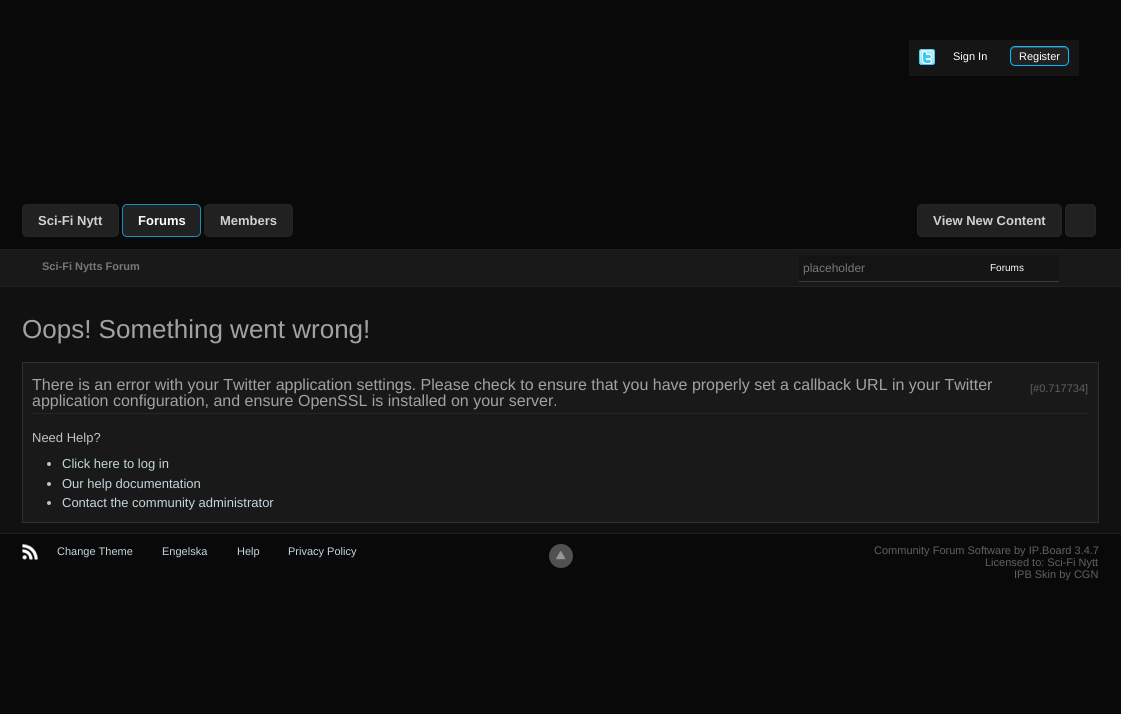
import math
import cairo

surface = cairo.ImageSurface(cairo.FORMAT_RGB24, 1121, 714)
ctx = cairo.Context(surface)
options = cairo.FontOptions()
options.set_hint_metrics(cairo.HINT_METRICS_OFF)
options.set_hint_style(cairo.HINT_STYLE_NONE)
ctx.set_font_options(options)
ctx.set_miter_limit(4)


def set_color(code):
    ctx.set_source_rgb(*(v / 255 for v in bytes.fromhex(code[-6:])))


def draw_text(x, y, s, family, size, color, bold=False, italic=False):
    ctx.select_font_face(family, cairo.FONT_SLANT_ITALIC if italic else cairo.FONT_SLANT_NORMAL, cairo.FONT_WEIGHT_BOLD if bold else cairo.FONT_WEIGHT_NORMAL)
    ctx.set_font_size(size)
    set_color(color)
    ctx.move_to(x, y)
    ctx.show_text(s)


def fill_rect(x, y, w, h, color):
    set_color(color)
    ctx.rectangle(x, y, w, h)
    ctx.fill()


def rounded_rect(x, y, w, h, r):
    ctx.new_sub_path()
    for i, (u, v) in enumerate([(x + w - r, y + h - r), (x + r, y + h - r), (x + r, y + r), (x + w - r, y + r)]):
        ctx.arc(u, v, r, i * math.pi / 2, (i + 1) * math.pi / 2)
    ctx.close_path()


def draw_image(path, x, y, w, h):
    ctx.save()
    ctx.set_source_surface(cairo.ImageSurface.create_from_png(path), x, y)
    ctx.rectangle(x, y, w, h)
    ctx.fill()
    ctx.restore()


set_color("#090909")
ctx.paint()
fill_rect(909, 40, 170, 36, "#151515")
draw_image("assets/img1.png", 919, 49, 16, 16)
draw_text(953, 60, "Sign In", "Liberation Sans", 11, "#ffffff")
set_color("#212121")
rounded_rect(1010, 46, 59, 20, 5)
ctx.fill()
set_color("#4d4d4d")
ctx.new_path()
ctx.move_to(1015, 48)
ctx.line_to(1064, 48)
ctx.curve_to(1066, 48, 1068, 50, 1068, 52)
ctx.curve_to(1068, 45, 1061, 47, 1056, 47)
ctx.line_to(1023, 47)
ctx.curve_to(1018, 47, 1011, 45, 1011, 52)
ctx.curve_to(1011, 50, 1013, 48, 1015, 48)
ctx.close_path()
ctx.fill()
rounded_rect(1010.5, 46.5, 58, 19, 4.5)
set_color("#00beff")
ctx.set_line_width(1)
ctx.stroke()
draw_text(1019, 60, "Register", "Liberation Sans", 11, "#ffffff")
set_color("#212121")
rounded_rect(22.5, 204.5, 96, 32, 4.5)
ctx.fill_preserve()
set_color("#252525")
ctx.stroke()
draw_text(38, 225, "Sci-Fi Nytt", "Liberation Sans", 13, "#d1d1d1", bold=True)
set_color("#212121")
rounded_rect(122.5, 204.5, 78, 32, 4.5)
ctx.fill_preserve()
set_color("#1690bd")
ctx.stroke()
draw_text(138, 225, "Forums", "Liberation Sans", 13, "#ffffff", bold=True)
set_color("#212121")
rounded_rect(204.5, 204.5, 88, 32, 4.5)
ctx.fill_preserve()
set_color("#252525")
ctx.stroke()
draw_text(220, 225, "Members", "Liberation Sans", 13, "#d1d1d1", bold=True)
set_color("#212121")
rounded_rect(917.5, 204.5, 144, 32, 4.5)
ctx.fill_preserve()
set_color("#252525")
ctx.stroke()
draw_text(933, 225, "View New Content", "Liberation Sans", 13, "#d1d1d1", bold=True)
set_color("#212121")
rounded_rect(1065.5, 204.5, 30, 32, 4.5)
ctx.fill_preserve()
set_color("#252525")
ctx.stroke()
fill_rect(0, 250, 1121, 36, "#191919")
fill_rect(0, 249, 1121, 1, "#212121")
fill_rect(0, 286, 1121, 1, "#212121")
draw_text(42, 270, "Sci-Fi Nytts Forum", "Liberation Sans", 11, "#777777", bold=True)
fill_rect(799, 281, 260, 1, "#3c3c3c")
fill_rect(799, 255, 260, 26, "#141414")
draw_text(803, 272, "placeholder", "Liberation Sans", 12, "#777777")
draw_text(990, 271, "Forums", "Liberation Sans", 10, "#ffffff")
fill_rect(0, 287, 1121, 246, "#111111")
fill_rect(0, 533, 1121, 1, "#212121")
draw_text(22, 338, "Oops! Something went wrong!", "Liberation Sans", 26, "#a2a2a2")
set_color("#191919")
ctx.rectangle(22.5, 362.5, 1076, 160)
ctx.fill_preserve()
set_color("#303030")
ctx.stroke()
fill_rect(32, 413, 1057, 1, "#252525")
draw_text(32, 390, "There is an error with your Twitter application settings. Please check to ensure that you have properly set a callback URL in your Twitter", "Liberation Sans", 16, "#a2a2a2")
draw_text(32, 406, "application configuration, and ensure OpenSSL is installed on your server.", "Liberation Sans", 16, "#a2a2a2")
draw_text(1030, 392, "[#0.717734]", "Liberation Sans", 11, "#606060")
draw_text(32, 442, "Need Help?", "Liberation Sans", 13, "#c2c2c2")
ctx.new_path()
ctx.arc(49, 464, 2, 0, 2 * math.pi)
ctx.fill()
draw_text(62, 468, "Click here to log in", "Liberation Sans", 13, "#c4d6dc")
set_color("#c2c2c2")
ctx.new_path()
ctx.arc(49, 484, 2, 0, 2 * math.pi)
ctx.fill()
draw_text(62, 488, "Our help documentation", "Liberation Sans", 13, "#c4d6dc")
set_color("#c2c2c2")
ctx.new_path()
ctx.arc(49, 503, 2, 0, 2 * math.pi)
ctx.fill()
draw_text(62, 507, "Contact the community administrator", "Liberation Sans", 13, "#c4d6dc")
draw_image("assets/img2.png", 22, 544, 16, 16)
draw_text(57, 555, "Change Theme", "Liberation Sans", 11, "#c4d6dc")
draw_text(162, 555, "Engelska", "Liberation Sans", 11, "#c4d6dc")
draw_text(237, 555, "Help", "Liberation Sans", 11, "#c4d6dc")
draw_text(288, 555, "Privacy Policy", "Liberation Sans", 11, "#c4d6dc")
set_color("#515151")
ctx.new_path()
ctx.arc(561, 556, 12, 0, 2 * math.pi)
ctx.fill()
draw_image("assets/img3.png", 556, 551, 10, 9)
draw_text(874, 554, "Community Forum Software by IP.Board 3.4.7", "Liberation Sans", 11, "#606060")
draw_text(985, 566, "Licensed to: Sci-Fi Nytt", "Liberation Sans", 11, "#606060")
draw_text(1014, 578, "IPB Skin by CGN", "Liberation Sans", 11, "#606060")
surface.write_to_png("output.png")
